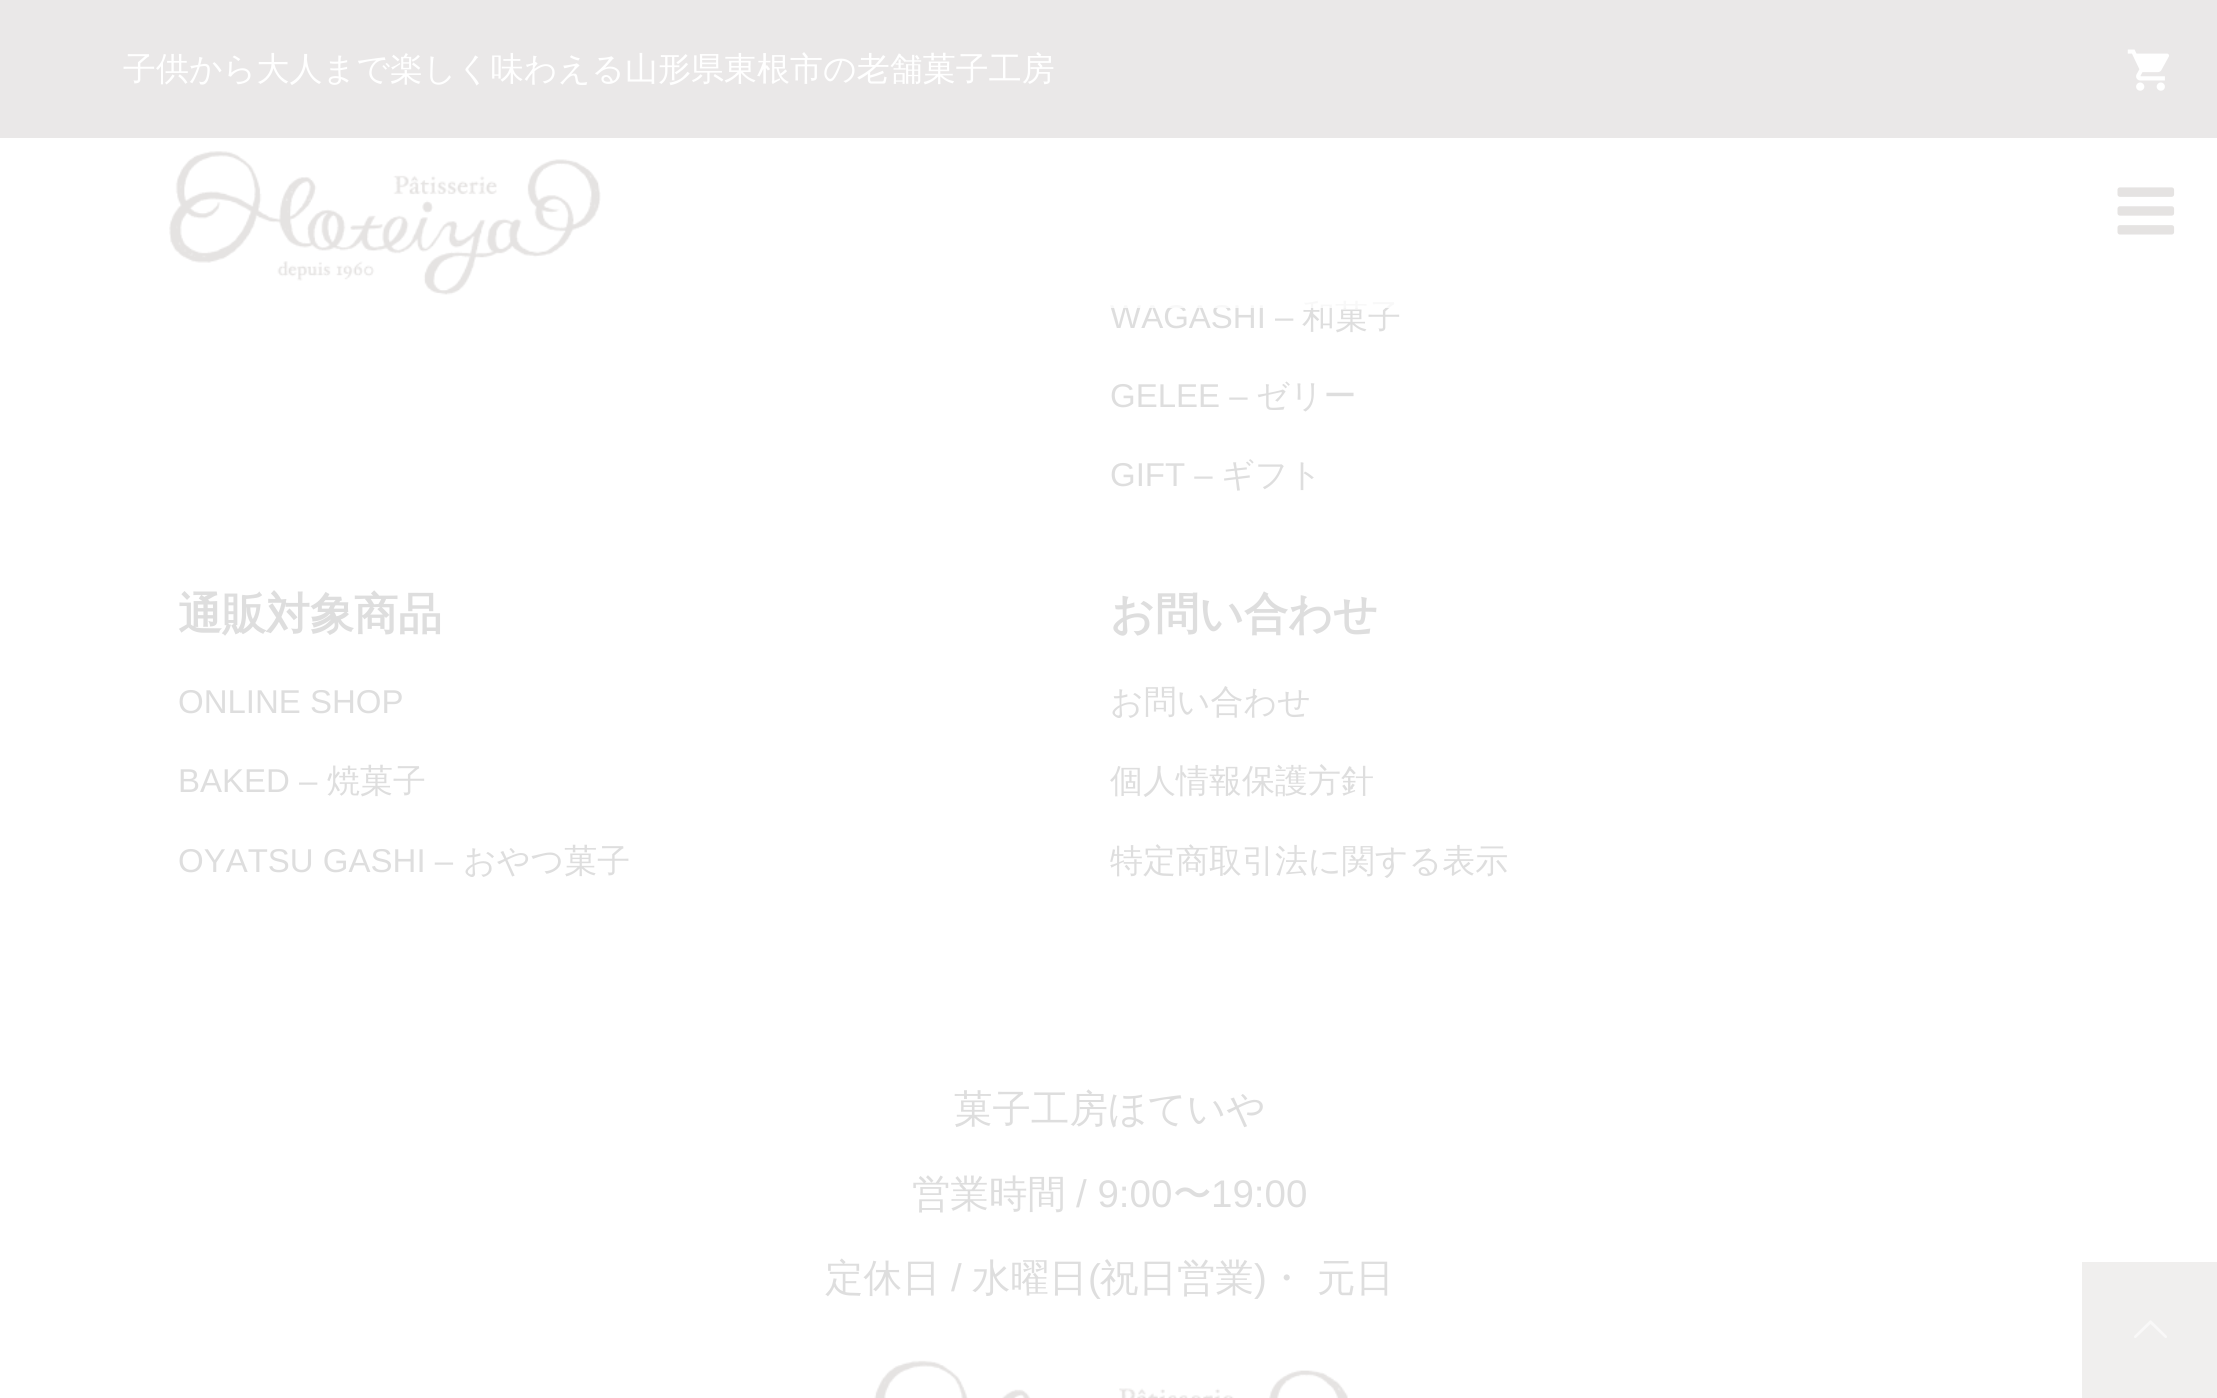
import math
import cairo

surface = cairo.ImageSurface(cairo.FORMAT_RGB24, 2217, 1398)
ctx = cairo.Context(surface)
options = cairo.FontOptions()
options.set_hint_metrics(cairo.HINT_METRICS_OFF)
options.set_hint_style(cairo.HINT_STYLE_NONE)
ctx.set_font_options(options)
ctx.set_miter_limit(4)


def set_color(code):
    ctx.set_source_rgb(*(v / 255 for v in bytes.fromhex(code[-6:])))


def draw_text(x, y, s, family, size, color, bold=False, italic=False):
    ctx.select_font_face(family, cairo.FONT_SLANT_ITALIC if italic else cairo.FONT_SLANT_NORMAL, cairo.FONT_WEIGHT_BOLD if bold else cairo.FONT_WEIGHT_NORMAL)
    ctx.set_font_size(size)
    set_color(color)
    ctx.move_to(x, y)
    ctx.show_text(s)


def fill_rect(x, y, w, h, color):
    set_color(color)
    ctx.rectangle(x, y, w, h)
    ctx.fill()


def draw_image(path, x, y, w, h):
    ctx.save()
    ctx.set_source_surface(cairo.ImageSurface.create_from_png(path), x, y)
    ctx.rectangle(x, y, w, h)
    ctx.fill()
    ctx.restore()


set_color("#ffffff")
ctx.paint()
fill_rect(0, 0, 2217, 138, "#eae8e8")
draw_text(123, 80, "子供から大人まで楽しく味わえる山形県東根市の老舗菓子工房", "WenQuanYi Zen Hei Medium", 33, "#ffffff")
draw_image("assets/img1.png", 2127, 49, 43, 42)
draw_text(1110, 328, "WAGASHI –", "Liberation Sans", 33, "#dedede")
draw_text(1302, 328, "和菓子", "WenQuanYi Zen Hei Medium", 33, "#dedede")
ctx.set_source_rgba(1, 1, 1, 0.8)
ctx.rectangle(1109, 300, 286, 8)
ctx.fill()
draw_image("assets/img2.png", 169, 151, 432, 144)
draw_image("assets/img3.png", 2117, 187, 58, 48)
draw_text(1110, 407, "GELEE –", "Liberation Sans", 33, "#dedede")
draw_text(1256, 407, "ゼリー", "WenQuanYi Zen Hei Medium", 33, "#dedede")
draw_text(1110, 486, "GIFT –", "Liberation Sans", 33, "#dedede")
draw_text(1221, 486, "ギフト", "WenQuanYi Zen Hei Medium", 33, "#dedede")
draw_text(178, 629, "通販対象商品", "WenQuanYi Zen Hei", 44, "#dedede", bold=True)
draw_text(178, 713, "ONLINE SHOP", "Liberation Sans", 33, "#dedede")
draw_text(178, 792, "BAKED –", "Liberation Sans", 33, "#dedede")
draw_text(327, 792, "焼菓子", "WenQuanYi Zen Hei Medium", 33, "#dedede")
draw_text(178, 872, "OYATSU GASHI –", "Liberation Sans", 33, "#dedede")
draw_text(463, 872, "おやつ菓子", "WenQuanYi Zen Hei Medium", 33, "#dedede")
draw_text(1110, 629, "お問い合わせ", "WenQuanYi Zen Hei", 44, "#dedede", bold=True)
draw_text(1110, 713, "お問い合わせ", "WenQuanYi Zen Hei Medium", 33, "#dedede")
draw_text(1110, 792, "個人情報保護方針", "WenQuanYi Zen Hei Medium", 33, "#dedede")
draw_text(1110, 872, "特定商取引法に関する表示", "WenQuanYi Zen Hei Medium", 33, "#dedede")
draw_text(954, 1122, "菓子工房ほていや", "WenQuanYi Zen Hei Medium", 38.5, "#dedede")
draw_text(912, 1207, "営業時間", "WenQuanYi Zen Hei Medium", 38.5, "#dedede")
draw_text(1076, 1207, "/ 9:00", "Liberation Sans", 38.5, "#dedede")
draw_text(1173, 1207, "〜", "WenQuanYi Zen Hei Medium", 38.5, "#dedede")
draw_text(1211, 1207, "19:00", "Liberation Sans", 38.5, "#dedede")
draw_text(825, 1291, "定休日", "WenQuanYi Zen Hei Medium", 38.5, "#dedede")
draw_text(951, 1291, "/", "Liberation Sans", 38.5, "#dedede")
draw_text(972, 1291, "水曜日", "WenQuanYi Zen Hei Medium", 38.5, "#dedede")
draw_text(1088, 1291, "(", "Liberation Sans", 38.5, "#dedede")
draw_text(1100, 1291, "祝日営業", "WenQuanYi Zen Hei Medium", 38.5, "#dedede")
draw_text(1254, 1291, ")", "Liberation Sans", 38.5, "#dedede")
draw_text(1267, 1291, "・ 元日", "WenQuanYi Zen Hei Medium", 38.5, "#dedede")
draw_image("assets/img4.png", 874, 1360, 474, 38)
fill_rect(2082, 1262, 135, 136, "#f0efee")
draw_image("assets/img5.png", 2134, 1320, 33, 18)
surface.write_to_png("output.png")
